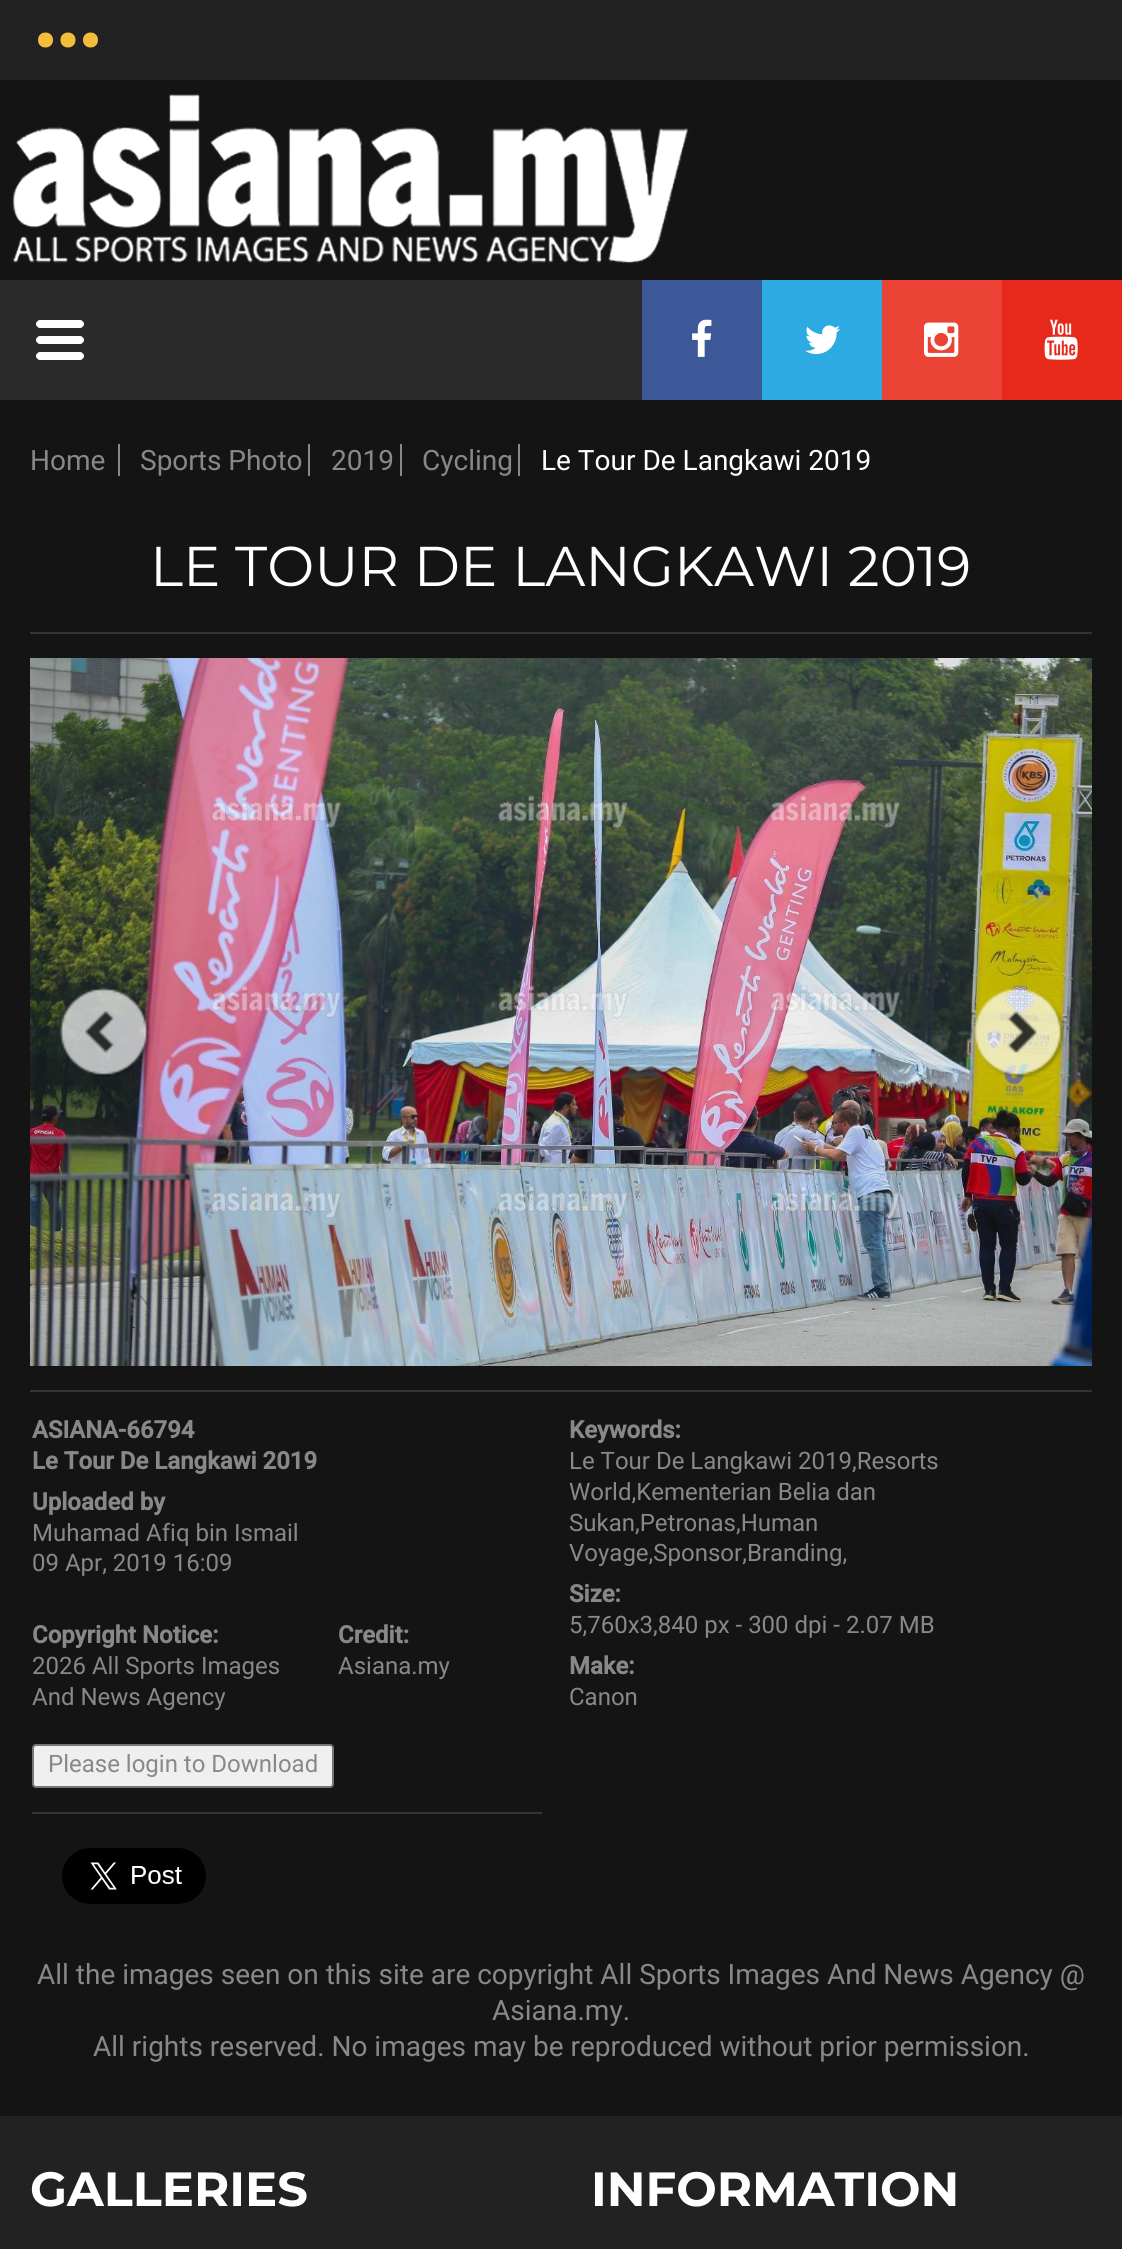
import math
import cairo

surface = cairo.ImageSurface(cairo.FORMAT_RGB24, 1122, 2249)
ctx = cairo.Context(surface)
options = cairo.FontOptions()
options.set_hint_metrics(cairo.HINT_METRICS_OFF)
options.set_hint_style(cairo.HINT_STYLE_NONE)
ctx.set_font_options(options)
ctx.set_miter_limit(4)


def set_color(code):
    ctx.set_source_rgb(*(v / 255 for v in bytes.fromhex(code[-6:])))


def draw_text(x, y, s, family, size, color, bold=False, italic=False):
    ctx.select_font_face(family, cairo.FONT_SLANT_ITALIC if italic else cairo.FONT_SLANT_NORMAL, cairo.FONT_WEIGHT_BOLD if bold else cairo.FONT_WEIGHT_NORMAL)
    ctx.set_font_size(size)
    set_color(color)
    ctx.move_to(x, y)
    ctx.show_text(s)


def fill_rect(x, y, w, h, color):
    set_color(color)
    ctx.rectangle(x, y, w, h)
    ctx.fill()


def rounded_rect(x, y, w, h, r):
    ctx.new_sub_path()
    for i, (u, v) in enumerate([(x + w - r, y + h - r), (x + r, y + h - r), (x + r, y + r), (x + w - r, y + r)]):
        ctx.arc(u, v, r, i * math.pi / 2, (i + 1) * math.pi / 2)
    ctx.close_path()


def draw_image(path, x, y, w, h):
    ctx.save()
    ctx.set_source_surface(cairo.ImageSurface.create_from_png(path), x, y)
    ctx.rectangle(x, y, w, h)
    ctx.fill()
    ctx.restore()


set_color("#141414")
ctx.paint()
fill_rect(0, 0, 1122, 80, "#222222")
set_color("#f1bd3b")
ctx.new_path()
ctx.move_to(75.5, 40)
ctx.curve_to(75.5, 50, 60.5, 50, 60.5, 40)
ctx.curve_to(60.5, 30, 75.5, 30, 75.5, 40)
ctx.close_path()
ctx.move_to(98, 40)
ctx.curve_to(98, 50, 83, 50, 83, 40)
ctx.curve_to(83, 30, 98, 30, 98, 40)
ctx.close_path()
ctx.move_to(53, 40)
ctx.curve_to(53, 50, 38, 50, 38, 40)
ctx.curve_to(38, 30, 53, 30, 53, 40)
ctx.close_path()
ctx.fill()
draw_image("assets/img1.png", 12, 94, 677, 169)
fill_rect(0, 280, 642, 120, "#2b2b2b")
fill_rect(642, 280, 120, 120, "#3c5899")
draw_image("assets/img2.png", 692, 319, 20, 38)
fill_rect(762, 280, 120, 120, "#2caae1")
draw_image("assets/img3.png", 805, 325, 35, 29)
fill_rect(882, 280, 120, 120, "#ea4335")
draw_image("assets/img4.png", 924, 322, 35, 35)
fill_rect(1002, 280, 120, 120, "#e6291b")
draw_image("assets/img5.png", 1044, 319, 34, 41)
set_color("#ffffff")
ctx.new_path()
ctx.move_to(80, 344)
ctx.line_to(40, 344)
ctx.curve_to(38, 344, 36, 342, 36, 340)
ctx.curve_to(36, 338, 38, 336, 40, 336)
ctx.line_to(80, 336)
ctx.curve_to(82, 336, 84, 338, 84, 340)
ctx.curve_to(84, 342, 82, 344, 80, 344)
ctx.close_path()
ctx.move_to(80, 360)
ctx.line_to(40, 360)
ctx.curve_to(38, 360, 36, 358, 36, 356)
ctx.curve_to(36, 354, 38, 352, 40, 352)
ctx.line_to(80, 352)
ctx.curve_to(82, 352, 84, 354, 84, 356)
ctx.curve_to(84, 358, 82, 360, 80, 360)
ctx.close_path()
ctx.move_to(80, 328)
ctx.line_to(40, 328)
ctx.curve_to(38, 328, 36, 326, 36, 324)
ctx.curve_to(36, 322, 38, 320, 40, 320)
ctx.line_to(80, 320)
ctx.curve_to(82, 320, 84, 322, 84, 324)
ctx.curve_to(84, 326, 82, 328, 80, 328)
ctx.close_path()
ctx.fill()
draw_text(30, 470, "Home", "Roboto", 28, "#888888")
fill_rect(118, 444, 2, 32, "#888888")
draw_text(140, 470, "Sports Photo", "Roboto", 28, "#888888")
fill_rect(308, 444, 2, 32, "#888888")
draw_text(331, 470, "2019", "Roboto", 28, "#888888")
fill_rect(400, 444, 2, 32, "#888888")
draw_text(422, 470, "Cycling", "Roboto", 28, "#888888")
fill_rect(518, 444, 2, 32, "#888888")
draw_text(541, 470, "Le Tour De Langkawi 2019", "Roboto", 28, "#ffffff")
draw_text(150, 586, "LE TOUR DE LANGKAWI 2019", "Montserrat", 56, "#ffffff")
fill_rect(30, 632, 1062, 2, "#343434")
draw_image("assets/img6.png", 30, 658, 1062, 708)
draw_image("assets/img7.png", 59, 987, 91, 90)
draw_image("assets/img8.png", 973, 987, 92, 91)
fill_rect(30, 1390, 1062, 2, "#343434")
draw_text(32, 1438, "ASIANA-66794", "Roboto", 24, "#888888", bold=True)
draw_text(32, 1469, "Le Tour De Langkawi 2019", "Roboto", 24, "#888888", bold=True)
draw_text(32, 1510, "Uploaded by", "Roboto", 24, "#888888", bold=True)
draw_text(32, 1541, "Muhamad Afiq bin Ismail", "Roboto", 24, "#888888")
draw_text(32, 1571, "09 Apr, 2019 16:09", "Roboto", 24, "#888888")
draw_text(32, 1643, "Copyright Notice:", "Roboto", 24, "#888888", bold=True)
draw_text(32, 1674, "2026 All Sports Images", "Roboto", 24, "#888888")
draw_text(32, 1705, "And News Agency", "Roboto", 24, "#888888")
draw_text(338, 1643, "Credit:", "Roboto", 24, "#888888", bold=True)
draw_text(338, 1674, "Asiana.my", "Roboto", 24, "#888888")
set_color("#efefef")
rounded_rect(33, 1745, 300, 42, 3)
ctx.fill_preserve()
set_color("#767676")
ctx.stroke()
draw_text(48, 1772, "Please login to Download", "Roboto", 24, "#888888")
fill_rect(32, 1812, 510, 2, "#343434")
draw_image("assets/img9.png", 62, 1848, 144, 56)
draw_text(569, 1438, "Keywords:", "Roboto", 24, "#888888", bold=True)
draw_text(569, 1469, "Le Tour De Langkawi 2019,Resorts", "Roboto", 24, "#888888")
draw_text(569, 1500, "World,Kementerian Belia dan", "Roboto", 24, "#888888")
draw_text(569, 1531, "Sukan,Petronas,Human", "Roboto", 24, "#888888")
draw_text(569, 1561, "Voyage,Sponsor,Branding,", "Roboto", 24, "#888888")
draw_text(569, 1602, "Size:", "Roboto", 24, "#888888", bold=True)
draw_text(569, 1633, "5,760x3,840 px - 300 dpi - 2.07 MB", "Roboto", 24, "#888888")
draw_text(569, 1674, "Make:", "Roboto", 24, "#888888", bold=True)
draw_text(569, 1705, "Canon", "Roboto", 24, "#888888")
draw_text(37, 1984, "All the images seen on this site are copyright All Sports Images And News Agency @", "Roboto", 28, "#888888")
draw_text(492, 2020, "Asiana.my.", "Roboto", 28, "#888888")
draw_text(93, 2056, "All rights reserved. No images may be reproduced without prior permission.", "Roboto", 28, "#888888")
fill_rect(0, 2116, 1122, 133, "#222222")
draw_text(30, 2206, "GALLERIES", "Montserrat", 48, "#ffffff", bold=True)
draw_text(591, 2206, "INFORMATION", "Montserrat", 48, "#ffffff", bold=True)
surface.write_to_png("output.png")
